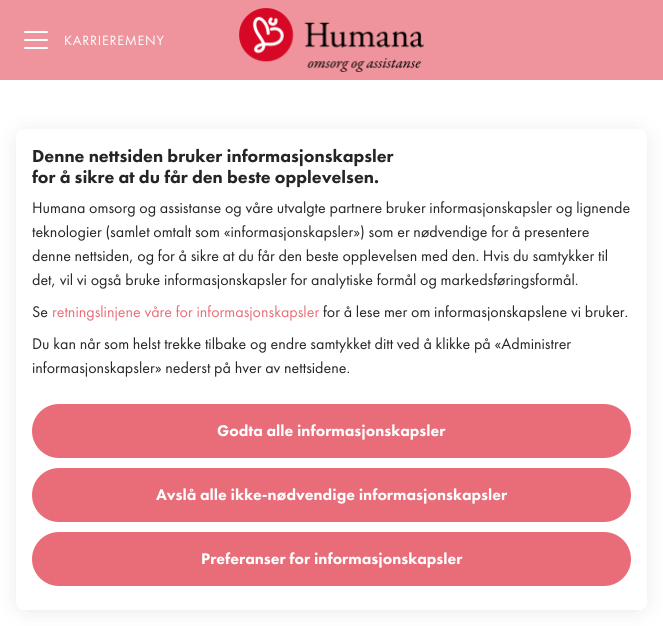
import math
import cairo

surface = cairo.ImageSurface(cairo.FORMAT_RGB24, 663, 626)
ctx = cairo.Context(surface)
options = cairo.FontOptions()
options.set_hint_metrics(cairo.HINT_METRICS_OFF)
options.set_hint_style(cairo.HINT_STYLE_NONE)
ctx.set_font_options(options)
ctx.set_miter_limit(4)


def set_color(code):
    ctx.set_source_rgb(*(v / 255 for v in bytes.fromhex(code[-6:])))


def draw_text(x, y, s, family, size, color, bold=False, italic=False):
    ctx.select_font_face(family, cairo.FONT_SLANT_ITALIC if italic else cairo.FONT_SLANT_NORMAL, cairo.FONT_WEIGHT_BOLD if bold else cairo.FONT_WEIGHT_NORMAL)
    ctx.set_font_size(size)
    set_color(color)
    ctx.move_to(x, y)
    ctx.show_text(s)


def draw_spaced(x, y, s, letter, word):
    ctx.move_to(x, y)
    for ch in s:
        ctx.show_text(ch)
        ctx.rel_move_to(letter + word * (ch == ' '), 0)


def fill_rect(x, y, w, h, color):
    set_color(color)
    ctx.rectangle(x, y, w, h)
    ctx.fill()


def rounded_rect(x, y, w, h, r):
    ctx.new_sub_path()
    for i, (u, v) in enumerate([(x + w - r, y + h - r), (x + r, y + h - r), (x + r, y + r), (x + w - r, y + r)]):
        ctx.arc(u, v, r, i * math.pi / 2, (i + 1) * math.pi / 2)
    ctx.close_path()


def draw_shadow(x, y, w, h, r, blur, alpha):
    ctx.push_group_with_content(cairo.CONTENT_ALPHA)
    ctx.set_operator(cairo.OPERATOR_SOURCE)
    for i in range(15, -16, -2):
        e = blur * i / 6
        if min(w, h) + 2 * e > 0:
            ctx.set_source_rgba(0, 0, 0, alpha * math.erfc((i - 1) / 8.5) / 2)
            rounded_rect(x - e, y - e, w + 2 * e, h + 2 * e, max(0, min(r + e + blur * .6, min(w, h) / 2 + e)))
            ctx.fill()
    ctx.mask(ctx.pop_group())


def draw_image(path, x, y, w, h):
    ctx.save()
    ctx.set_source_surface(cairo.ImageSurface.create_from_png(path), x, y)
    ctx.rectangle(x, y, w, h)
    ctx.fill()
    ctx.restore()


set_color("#ffffff")
ctx.paint()
fill_rect(0, 0, 663, 80, "#ef949d")
set_color("#ffffff")
rounded_rect(24, 31, 24, 2, 1)
ctx.fill()
rounded_rect(24, 39, 24, 2, 1)
ctx.fill()
rounded_rect(24, 47, 24, 2, 1)
ctx.fill()
ctx.select_font_face("Futura PT")
ctx.set_font_size(14)
draw_spaced(64, 45, "KARRIEREMENY", 0.75, 0)
draw_image("assets/img1.png", 239, 8, 185, 64)
set_color("#000000")
draw_shadow(26, 141, 611, 461, 0, 13.5, 0.18)
set_color("#ffffff")
rounded_rect(16, 129, 631, 481, 8)
ctx.fill()
draw_text(32, 162, "Denne nettsiden bruker informasjonskapsler", "Futura PT Black", 18, "#252525")
draw_text(32, 183, "for å sikre at du får den beste opplevelsen.", "Futura PT Black", 18, "#252525")
draw_text(32, 213, "Humana omsorg og assistanse og våre utvalgte partnere bruker informasjonskapsler og lignende", "Futura PT", 16, "#252525")
draw_text(32, 237, "teknologier (samlet omtalt som «informasjonskapsler») som er nødvendige for å presentere", "Futura PT", 16, "#252525")
draw_text(32, 261, "denne nettsiden, og for å sikre at du får den beste opplevelsen med den. Hvis du samtykker til", "Futura PT", 16, "#252525")
draw_text(32, 285, "det, vil vi også bruke informasjonskapsler for analytiske formål og markedsføringsformål.", "Futura PT", 16, "#252525")
draw_text(32, 317, "Se", "Futura PT", 16, "#252525")
draw_text(52, 317, "retningslinjene våre for informasjonskapsler", "Futura PT", 16, "#e96d79")
draw_text(323, 317, "for å lese mer om informasjonskapslene vi bruker.", "Futura PT", 16, "#252525")
draw_text(32, 349, "Du kan når som helst trekke tilbake og endre samtykket ditt ved å klikke på «Administrer", "Futura PT", 16, "#252525")
draw_text(32, 373, "informasjonskapsler» nederst på hver av nettsidene.", "Futura PT", 16, "#252525")
set_color("#e96d79")
rounded_rect(32, 404, 599, 54, 27)
ctx.fill()
draw_text(217, 436, "Godta alle informasjonskapsler", "Futura PT Black", 16, "#ffffff")
set_color("#e96d79")
rounded_rect(32, 468, 599, 54, 27)
ctx.fill()
draw_text(156, 500, "Avslå alle ikke-nødvendige informasjonskapsler", "Futura PT Black", 16, "#ffffff")
set_color("#e96d79")
rounded_rect(32, 532, 599, 54, 27)
ctx.fill()
draw_text(201, 564, "Preferanser for informasjonskapsler", "Futura PT Black", 16, "#ffffff")
surface.write_to_png("output.png")
